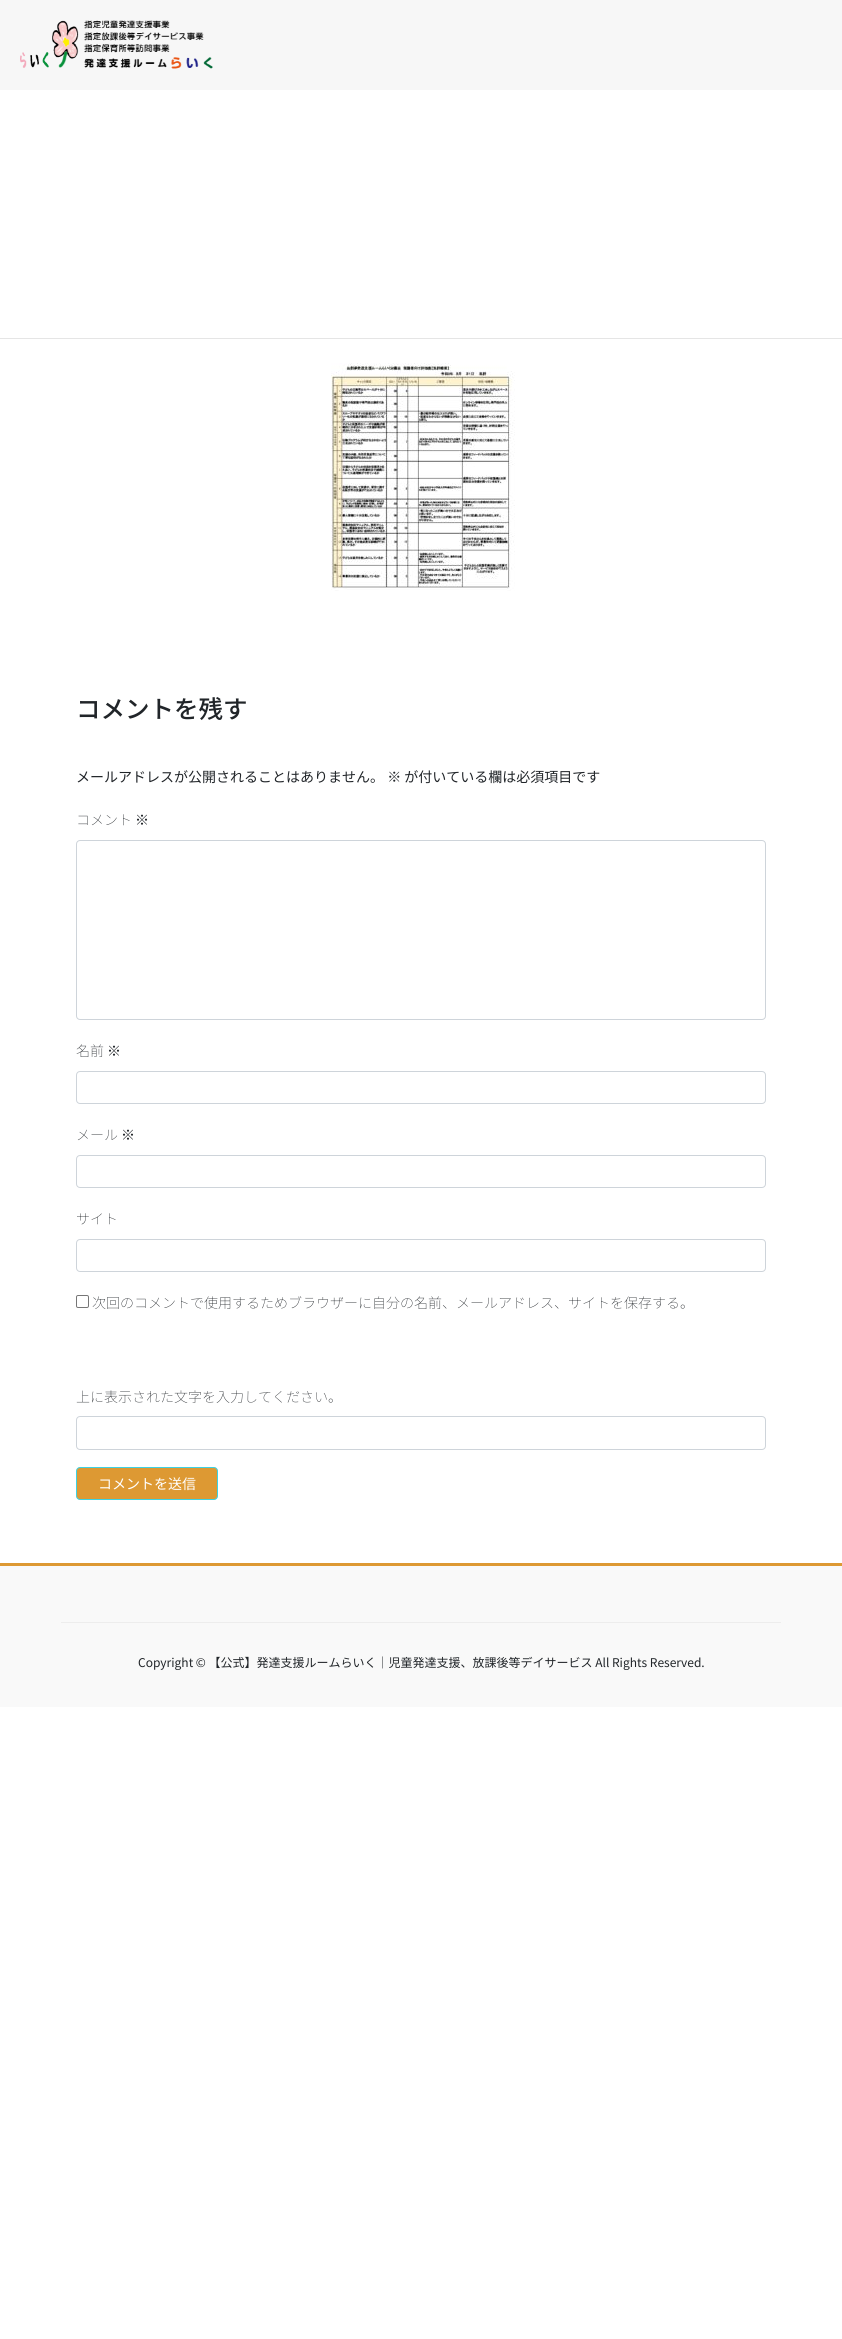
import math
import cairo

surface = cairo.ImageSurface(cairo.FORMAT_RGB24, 842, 2339)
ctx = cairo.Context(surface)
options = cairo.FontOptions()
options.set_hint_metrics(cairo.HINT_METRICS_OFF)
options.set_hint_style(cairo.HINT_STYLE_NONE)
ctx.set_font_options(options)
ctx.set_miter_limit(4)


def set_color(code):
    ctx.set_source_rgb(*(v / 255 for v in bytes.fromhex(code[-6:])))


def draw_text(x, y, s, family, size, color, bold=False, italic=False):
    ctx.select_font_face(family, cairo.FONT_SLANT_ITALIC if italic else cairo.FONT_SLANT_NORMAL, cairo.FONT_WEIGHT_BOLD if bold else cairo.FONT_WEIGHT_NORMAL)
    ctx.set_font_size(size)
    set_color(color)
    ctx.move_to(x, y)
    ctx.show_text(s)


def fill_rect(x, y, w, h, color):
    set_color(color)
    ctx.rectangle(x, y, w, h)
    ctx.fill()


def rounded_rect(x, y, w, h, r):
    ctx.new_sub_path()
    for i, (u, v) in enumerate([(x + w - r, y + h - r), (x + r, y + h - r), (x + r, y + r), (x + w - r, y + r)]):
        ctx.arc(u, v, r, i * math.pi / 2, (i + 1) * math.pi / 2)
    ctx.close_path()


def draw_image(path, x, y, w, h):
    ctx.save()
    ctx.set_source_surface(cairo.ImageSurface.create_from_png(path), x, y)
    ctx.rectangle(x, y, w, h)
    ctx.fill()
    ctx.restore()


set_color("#ffffff")
ctx.paint()
fill_rect(0, 0, 842, 90, "#f7f7f7")
draw_image("assets/img1.png", 20, 20, 193, 49)
fill_rect(0, 338, 842, 1, "#e5e5e5")
draw_image("assets/img2.png", 331, 363, 184, 228)
draw_text(76, 718, "コメントを残す", "Noto Sans JP Medium", 24.5, "#212529")
draw_text(76, 782, "メールアドレスが公開されることはありません。 ※ が付いている欄は必須項目です", "Noto Sans JP", 14, "#212529")
draw_text(76, 825, "コメント ※", "Noto Sans JP Thin", 14, "#212529")
rounded_rect(76.5, 840.5, 689, 179, 3.5)
set_color("#ced4da")
ctx.set_line_width(1)
ctx.stroke()
draw_text(76, 1056, "名前 ※", "Noto Sans JP Thin", 14, "#212529")
rounded_rect(76.5, 1071.5, 689, 32, 3.5)
set_color("#ced4da")
ctx.stroke()
draw_text(76, 1140, "メール ※", "Noto Sans JP Thin", 14, "#212529")
rounded_rect(76.5, 1155.5, 689, 32, 3.5)
set_color("#ced4da")
ctx.stroke()
draw_text(76, 1224, "サイト", "Noto Sans JP Thin", 14, "#212529")
rounded_rect(76.5, 1239.5, 689, 32, 3.5)
set_color("#ced4da")
ctx.stroke()
rounded_rect(76.5, 1295.5, 12, 12, 1.5)
set_color("#767676")
ctx.stroke()
draw_text(92, 1308, "次回のコメントで使用するためブラウザーに自分の名前、メールアドレス、サイトを保存する。", "Noto Sans JP Thin", 14, "#212529")
draw_text(76, 1402, "上に表示された文字を入力してください。", "Noto Sans JP Thin", 14, "#212529")
rounded_rect(76.5, 1416.5, 689, 33, 3.5)
set_color("#ced4da")
ctx.stroke()
set_color("#dd9933")
rounded_rect(76.5, 1467.5, 141, 32, 3.5)
ctx.fill_preserve()
set_color("#3dd2e2")
ctx.stroke()
draw_text(98, 1489, "コメントを送信", "Noto Sans JP", 14, "#ffffff")
fill_rect(0, 1566, 842, 141, "#f9f9f9")
fill_rect(0, 1563, 842, 3, "#dd9933")
fill_rect(61, 1622, 720, 1, "#ededed")
draw_text(138, 1667, "Copyright © 【公式】発達支援ルームらいく｜児童発達支援、放課後等デイサービス All Rights Reserved.", "Noto Sans JP", 12, "#212529")
surface.write_to_png("output.png")
